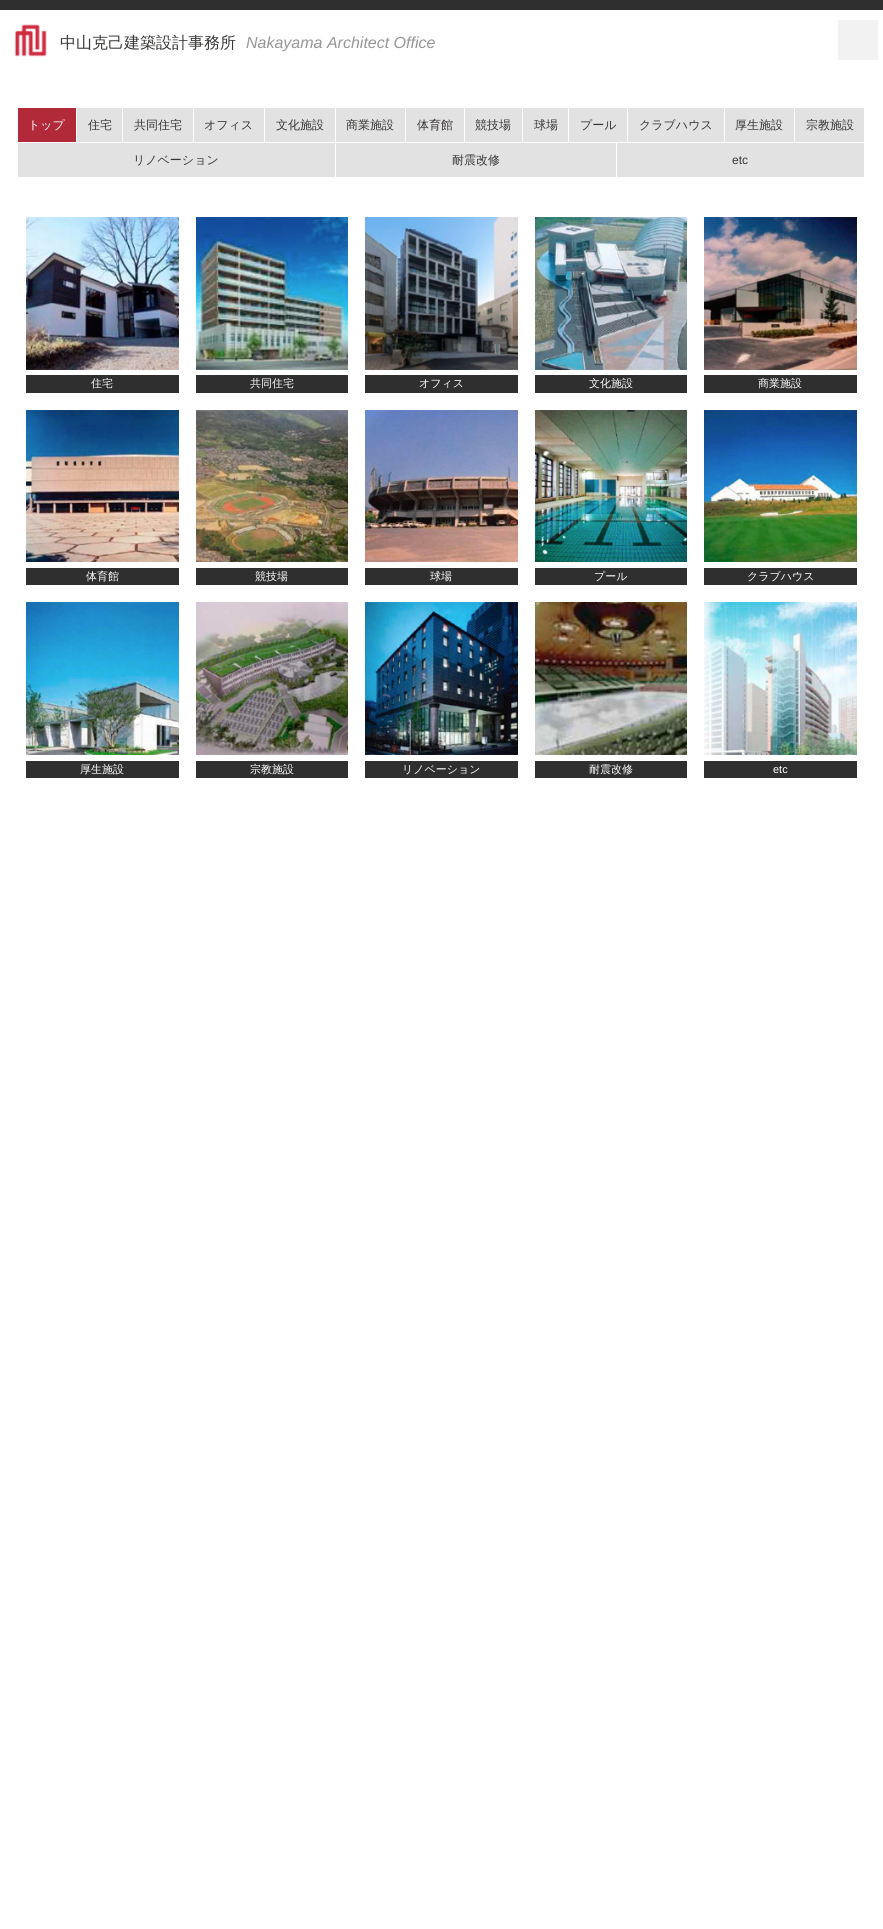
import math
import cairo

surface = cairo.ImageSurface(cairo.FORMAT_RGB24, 883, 1929)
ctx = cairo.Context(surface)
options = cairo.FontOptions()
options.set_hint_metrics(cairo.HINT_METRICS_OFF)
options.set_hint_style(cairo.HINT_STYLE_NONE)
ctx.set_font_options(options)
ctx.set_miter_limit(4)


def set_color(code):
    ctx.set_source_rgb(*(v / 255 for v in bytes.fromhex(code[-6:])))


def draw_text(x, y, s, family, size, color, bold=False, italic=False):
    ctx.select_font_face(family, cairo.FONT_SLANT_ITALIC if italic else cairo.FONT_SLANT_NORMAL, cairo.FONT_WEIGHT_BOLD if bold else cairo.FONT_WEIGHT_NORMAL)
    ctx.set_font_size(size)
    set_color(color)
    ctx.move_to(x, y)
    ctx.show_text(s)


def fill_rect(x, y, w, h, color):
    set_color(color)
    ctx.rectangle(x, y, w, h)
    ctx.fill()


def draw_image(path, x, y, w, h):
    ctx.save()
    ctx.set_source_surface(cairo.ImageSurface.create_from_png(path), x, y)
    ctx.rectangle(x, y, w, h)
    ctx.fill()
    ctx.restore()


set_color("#ffffff")
ctx.paint()
fill_rect(0, 0, 883, 10, "#2f2f2f")
draw_image("assets/img1.png", 15, 24, 32, 33)
draw_text(60, 48, "中山克己建築設計事務所", "WenQuanYi Zen Hei Medium", 16, "#383635")
draw_text(246, 48, "Nakayama Architect Office", "Liberation Sans", 16, "#959595", italic=True)
fill_rect(838, 20, 40, 40, "#f2f2f2")
fill_rect(18, 108, 58, 34, "#b2293a")
draw_text(28, 129, "トップ", "WenQuanYi Zen Hei Medium", 12, "#ffffff")
fill_rect(77, 108, 45, 34, "#e2e2e2")
draw_text(88, 129, "住宅", "WenQuanYi Zen Hei Medium", 12, "#383635")
fill_rect(123, 108, 70, 34, "#e2e2e2")
draw_text(134, 129, "共同住宅", "WenQuanYi Zen Hei Medium", 12, "#383635")
fill_rect(194, 108, 70, 34, "#e2e2e2")
draw_text(204, 129, "オフィス", "WenQuanYi Zen Hei Medium", 12, "#383635")
fill_rect(265, 108, 70, 34, "#e2e2e2")
draw_text(276, 129, "文化施設", "WenQuanYi Zen Hei Medium", 12, "#383635")
fill_rect(336, 108, 69, 34, "#e2e2e2")
draw_text(346, 129, "商業施設", "WenQuanYi Zen Hei Medium", 12, "#383635")
fill_rect(406, 108, 58, 34, "#e2e2e2")
draw_text(417, 129, "体育館", "WenQuanYi Zen Hei Medium", 12, "#383635")
fill_rect(465, 108, 57, 34, "#e2e2e2")
draw_text(475, 129, "競技場", "WenQuanYi Zen Hei Medium", 12, "#383635")
fill_rect(523, 108, 45, 34, "#e2e2e2")
draw_text(534, 129, "球場", "WenQuanYi Zen Hei Medium", 12, "#383635")
fill_rect(569, 108, 58, 34, "#e2e2e2")
draw_text(580, 129, "プール", "WenQuanYi Zen Hei Medium", 12, "#383635")
fill_rect(628, 108, 96, 34, "#e2e2e2")
draw_text(639, 129, "クラブハウス", "WenQuanYi Zen Hei Medium", 12, "#383635")
fill_rect(725, 108, 69, 34, "#e2e2e2")
draw_text(735, 129, "厚生施設", "WenQuanYi Zen Hei Medium", 12, "#383635")
fill_rect(795, 108, 69, 34, "#e2e2e2")
draw_text(806, 129, "宗教施設", "WenQuanYi Zen Hei Medium", 12, "#383635")
fill_rect(18, 143, 317, 34, "#e2e2e2")
draw_text(133, 164, "リノベーション", "WenQuanYi Zen Hei Medium", 12, "#383635")
fill_rect(336, 143, 280, 34, "#e2e2e2")
draw_text(452, 164, "耐震改修", "WenQuanYi Zen Hei Medium", 12, "#383635")
fill_rect(617, 143, 247, 34, "#e2e2e2")
draw_text(732, 164, "etc", "Liberation Sans", 12, "#383635")
draw_image("assets/img2.png", 26, 217, 153, 153)
fill_rect(26, 375, 153, 18, "#2f2f2f")
draw_text(91, 387, "住宅", "WenQuanYi Zen Hei Medium", 11, "#ffffff")
draw_image("assets/img3.png", 196, 217, 152, 153)
fill_rect(196, 375, 152, 18, "#2f2f2f")
draw_text(250, 387, "共同住宅", "WenQuanYi Zen Hei Medium", 11, "#ffffff")
draw_image("assets/img4.png", 365, 217, 153, 153)
fill_rect(365, 375, 153, 18, "#2f2f2f")
draw_text(419, 387, "オフィス", "WenQuanYi Zen Hei Medium", 11, "#ffffff")
draw_image("assets/img5.png", 535, 217, 152, 153)
fill_rect(535, 375, 152, 18, "#2f2f2f")
draw_text(589, 387, "文化施設", "WenQuanYi Zen Hei Medium", 11, "#ffffff")
draw_image("assets/img6.png", 704, 217, 153, 153)
fill_rect(704, 375, 153, 18, "#2f2f2f")
draw_text(758, 387, "商業施設", "WenQuanYi Zen Hei Medium", 11, "#ffffff")
draw_image("assets/img7.png", 26, 410, 153, 152)
fill_rect(26, 568, 153, 17, "#2f2f2f")
draw_text(86, 580, "体育館", "WenQuanYi Zen Hei Medium", 11, "#ffffff")
draw_image("assets/img8.png", 196, 410, 152, 152)
fill_rect(196, 568, 152, 17, "#2f2f2f")
draw_text(255, 580, "競技場", "WenQuanYi Zen Hei Medium", 11, "#ffffff")
draw_image("assets/img9.png", 365, 410, 153, 152)
fill_rect(365, 568, 153, 17, "#2f2f2f")
draw_text(430, 580, "球場", "WenQuanYi Zen Hei Medium", 11, "#ffffff")
draw_image("assets/img10.png", 535, 410, 152, 152)
fill_rect(535, 568, 152, 17, "#2f2f2f")
draw_text(594, 580, "プール", "WenQuanYi Zen Hei Medium", 11, "#ffffff")
draw_image("assets/img11.png", 704, 410, 153, 152)
fill_rect(704, 568, 153, 17, "#2f2f2f")
draw_text(747, 580, "クラブハウス", "WenQuanYi Zen Hei Medium", 11, "#ffffff")
draw_image("assets/img12.png", 26, 602, 153, 153)
fill_rect(26, 761, 153, 17, "#2f2f2f")
draw_text(80, 773, "厚生施設", "WenQuanYi Zen Hei Medium", 11, "#ffffff")
draw_image("assets/img13.png", 196, 602, 152, 153)
fill_rect(196, 761, 152, 17, "#2f2f2f")
draw_text(250, 773, "宗教施設", "WenQuanYi Zen Hei Medium", 11, "#ffffff")
draw_image("assets/img14.png", 365, 602, 153, 153)
fill_rect(365, 761, 153, 17, "#2f2f2f")
draw_text(402, 773, "リノベーション", "WenQuanYi Zen Hei Medium", 11, "#ffffff")
draw_image("assets/img15.png", 535, 602, 152, 153)
fill_rect(535, 761, 152, 17, "#2f2f2f")
draw_text(589, 773, "耐震改修", "WenQuanYi Zen Hei Medium", 11, "#ffffff")
draw_image("assets/img16.png", 704, 602, 153, 153)
fill_rect(704, 761, 153, 17, "#2f2f2f")
draw_text(773, 773, "etc", "Liberation Sans", 11, "#ffffff")
surface.write_to_png("output.png")
